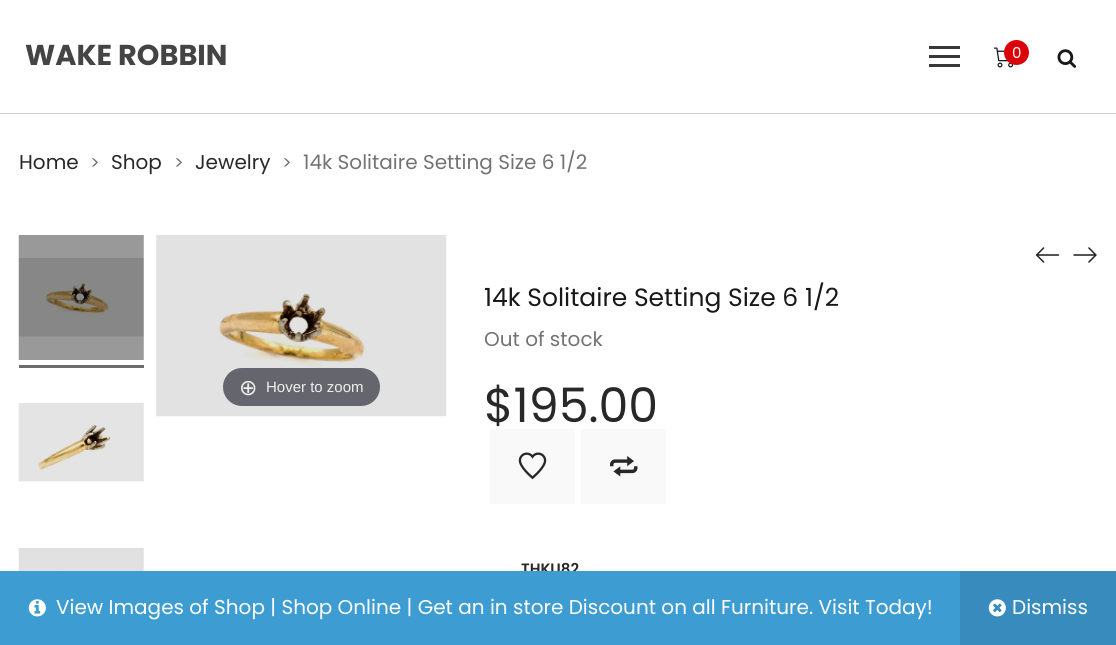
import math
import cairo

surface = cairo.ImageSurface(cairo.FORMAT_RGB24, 1116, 645)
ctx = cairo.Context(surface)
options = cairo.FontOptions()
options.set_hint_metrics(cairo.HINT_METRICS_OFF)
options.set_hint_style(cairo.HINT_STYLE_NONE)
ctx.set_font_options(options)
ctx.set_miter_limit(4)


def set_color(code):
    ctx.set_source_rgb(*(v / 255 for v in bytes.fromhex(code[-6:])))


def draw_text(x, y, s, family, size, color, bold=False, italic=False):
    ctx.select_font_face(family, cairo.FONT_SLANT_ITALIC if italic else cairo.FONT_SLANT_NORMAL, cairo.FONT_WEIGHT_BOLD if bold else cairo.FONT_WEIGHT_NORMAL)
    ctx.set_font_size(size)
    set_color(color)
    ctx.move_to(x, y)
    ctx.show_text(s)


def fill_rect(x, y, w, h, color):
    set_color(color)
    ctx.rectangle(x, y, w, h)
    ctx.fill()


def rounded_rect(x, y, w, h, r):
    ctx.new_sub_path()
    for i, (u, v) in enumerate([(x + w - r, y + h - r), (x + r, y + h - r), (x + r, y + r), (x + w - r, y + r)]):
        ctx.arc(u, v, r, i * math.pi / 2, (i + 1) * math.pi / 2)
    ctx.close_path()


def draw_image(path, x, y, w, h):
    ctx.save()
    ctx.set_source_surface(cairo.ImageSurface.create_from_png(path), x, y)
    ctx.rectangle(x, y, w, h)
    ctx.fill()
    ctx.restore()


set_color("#ffffff")
ctx.paint()
fill_rect(0, 113, 1116, 1, "#cecece")
draw_text(25, 65, "WAKE ROBBIN", "Poppins", 28.75, "#444444", bold=True)
fill_rect(929, 55, 31, 3, "#383838")
fill_rect(929, 46, 31, 3, "#383838")
fill_rect(929, 64, 31, 3, "#383838")
draw_image("assets/img1.png", 993, 47, 21, 21)
set_color("#dc0109")
ctx.arc(1016.5, 52.5, 12.5, 0, 2 * math.pi)
ctx.fill()
draw_text(1012, 58, "0", "Poppins", 15, "#ffffff")
draw_image("assets/img2.png", 1057, 49, 20, 19)
draw_text(19, 169, "Home", "Poppins", 20, "#282828")
draw_text(90, 169, ">", "Poppins", 18, "#737373")
draw_text(111, 169, "Shop", "Poppins", 20, "#282828")
draw_text(174, 169, ">", "Poppins", 18, "#737373")
draw_text(195, 169, "Jewelry", "Poppins", 20, "#282828")
draw_text(282, 169, ">", "Poppins", 18, "#737373")
draw_text(303, 169, "14k Solitaire Setting Size 6 1/2", "Poppins", 20, "#737373")
draw_image("assets/img3.png", 18, 235, 126, 125)
fill_rect(19, 365, 125, 3, "#6c6c6c")
draw_image("assets/img4.png", 18, 403, 126, 79)
draw_image("assets/img5.png", 18, 548, 126, 23)
draw_image("assets/img6.png", 156, 235, 291, 182)
ctx.set_source_rgba(0.192, 0.2, 0.239, 0.7)
rounded_rect(223, 368, 157, 38, 19)
ctx.fill()
draw_text(239, 395, "⊕", "DejaVu Sans", 22, "#eeeeee")
draw_text(266, 392, "Hover to zoom", "Liberation Sans", 15, "#eeeeee")
draw_image("assets/img7.png", 1035, 247, 25, 16)
draw_image("assets/img8.png", 1073, 247, 24, 16)
draw_text(484, 306, "14k Solitaire Setting Size 6 1/2", "Poppins", 25, "#181818")
draw_text(484, 346, "Out of stock", "Poppins", 20, "#737373")
draw_text(484, 422, "$195.00", "Poppins", 47.5, "#282828")
fill_rect(490, 429, 85, 75, "#f9f9f9")
draw_image("assets/img9.png", 518, 452, 29, 28)
fill_rect(581, 429, 85, 75, "#f9f9f9")
draw_image("assets/img10.png", 610, 456, 28, 21)
draw_text(521, 574, "THKU82", "Poppins SemiBold", 15, "#282828")
fill_rect(0, 571, 960, 74, "#3d9cd2")
draw_image("assets/img11.png", 28, 599, 18, 18)
draw_text(56, 614, "View Images of Shop | Shop Online | Get an in store Discount on all Furniture. Visit Today!", "Poppins", 20, "#ffffff")
fill_rect(960, 571, 156, 74, "#378cbd")
draw_image("assets/img12.png", 988, 599, 18, 18)
draw_text(1012, 614, "Dismiss", "Poppins", 20, "#ffffff")
surface.write_to_png("output.png")
